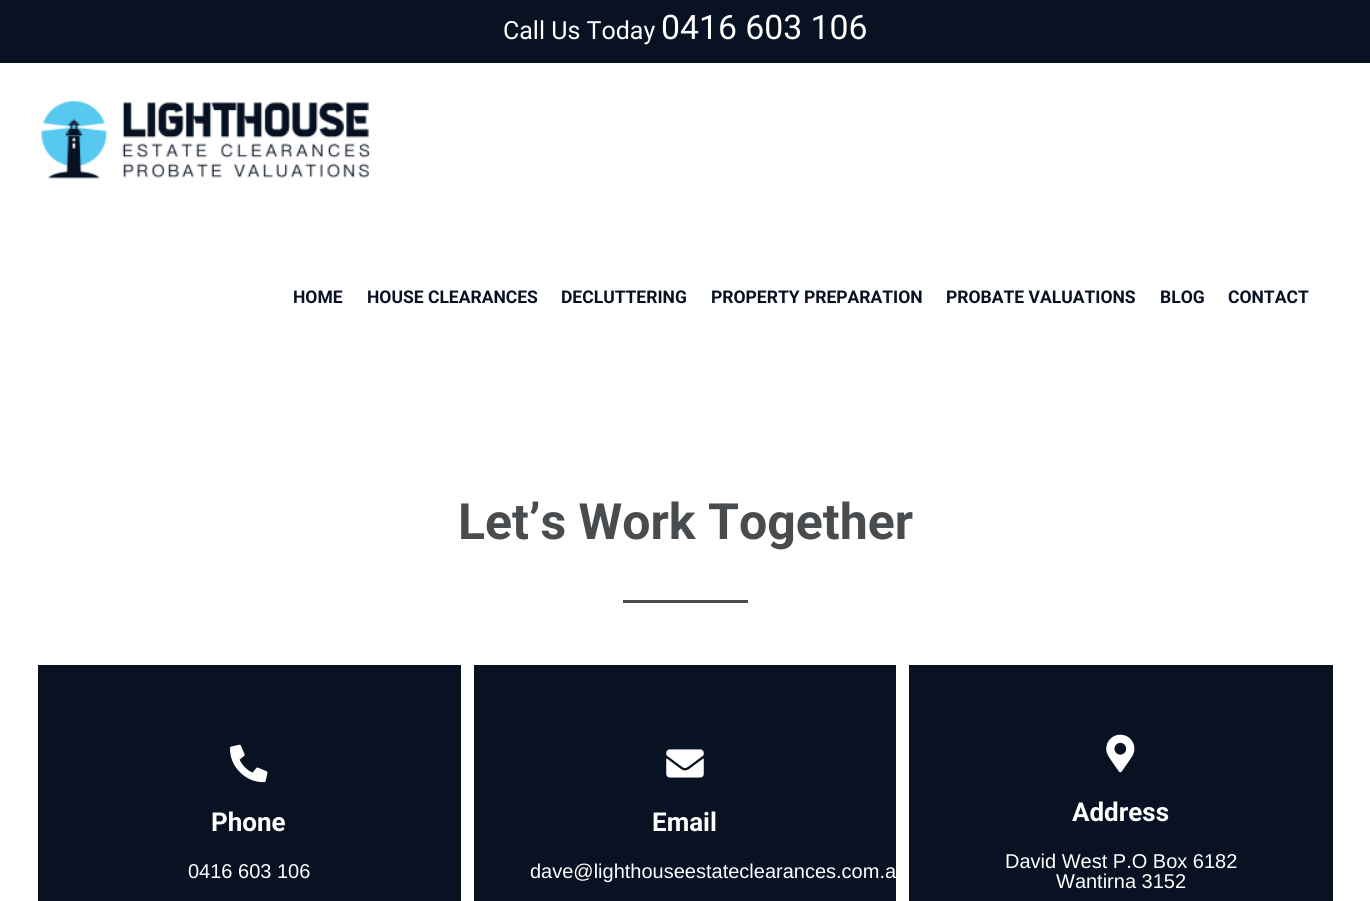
import math
import cairo

surface = cairo.ImageSurface(cairo.FORMAT_RGB24, 1370, 901)
ctx = cairo.Context(surface)
options = cairo.FontOptions()
options.set_hint_metrics(cairo.HINT_METRICS_OFF)
options.set_hint_style(cairo.HINT_STYLE_NONE)
ctx.set_font_options(options)
ctx.set_miter_limit(4)


def set_color(code):
    ctx.set_source_rgb(*(v / 255 for v in bytes.fromhex(code[-6:])))


def draw_text(x, y, s, family, size, color, bold=False, italic=False):
    ctx.select_font_face(family, cairo.FONT_SLANT_ITALIC if italic else cairo.FONT_SLANT_NORMAL, cairo.FONT_WEIGHT_BOLD if bold else cairo.FONT_WEIGHT_NORMAL)
    ctx.set_font_size(size)
    set_color(color)
    ctx.move_to(x, y)
    ctx.show_text(s)


def fill_rect(x, y, w, h, color):
    set_color(color)
    ctx.rectangle(x, y, w, h)
    ctx.fill()


def draw_image(path, x, y, w, h):
    ctx.save()
    ctx.set_source_surface(cairo.ImageSurface.create_from_png(path), x, y)
    ctx.rectangle(x, y, w, h)
    ctx.fill()
    ctx.restore()


set_color("#ffffff")
ctx.paint()
fill_rect(0, 0, 1370, 63, "#081223")
draw_text(503, 39, "Call Us Today", "Roboto", 25, "#ffffff")
draw_text(661, 39, "0416 603 106", "Roboto", 33.75, "#ffffff")
draw_image("assets/img1.png", 41, 101, 330, 78)
draw_text(293, 303, "HOME", "Roboto", 17.5, "#081223", bold=True)
draw_text(367, 303, "HOUSE CLEARANCES", "Roboto", 17.5, "#081223", bold=True)
draw_text(561, 303, "DECLUTTERING", "Roboto", 17.5, "#081223", bold=True)
draw_text(711, 303, "PROPERTY PREPARATION", "Roboto", 17.5, "#081223", bold=True)
draw_text(946, 303, "PROBATE VALUATIONS", "Roboto", 17.5, "#081223", bold=True)
draw_text(1160, 303, "BLOG", "Roboto", 17.5, "#081223", bold=True)
draw_text(1228, 303, "CONTACT", "Roboto", 17.5, "#081223", bold=True)
draw_text(458, 539, "Let’s Work Together", "Roboto", 50, "#494c4e", bold=True)
fill_rect(623, 600, 125, 3, "#494c4e")
fill_rect(38, 665, 423, 236, "#081223")
draw_image("assets/img2.png", 230, 744, 38, 39)
draw_text(211, 831, "Phone", "Roboto", 26, "#ffffff", bold=True)
draw_text(188, 878, "0416 603 106", "Liberation Sans", 20, "#ffffff")
fill_rect(474, 665, 422, 236, "#081223")
draw_image("assets/img3.png", 666, 749, 38, 29)
draw_text(652, 831, "Email", "Roboto", 26, "#ffffff", bold=True)
draw_text(530, 878, "dave@lighthouseestateclearances.com.a", "Liberation Sans", 20, "#ffffff")
fill_rect(909, 665, 424, 236, "#081223")
draw_image("assets/img4.png", 1106, 734, 29, 39)
draw_text(1072, 821, "Address", "Roboto", 26, "#ffffff", bold=True)
draw_text(1005, 868, "David West P.O Box 6182", "Liberation Sans", 20, "#ffffff")
draw_text(1056, 888, "Wantirna 3152", "Liberation Sans", 20, "#ffffff")
surface.write_to_png("output.png")
